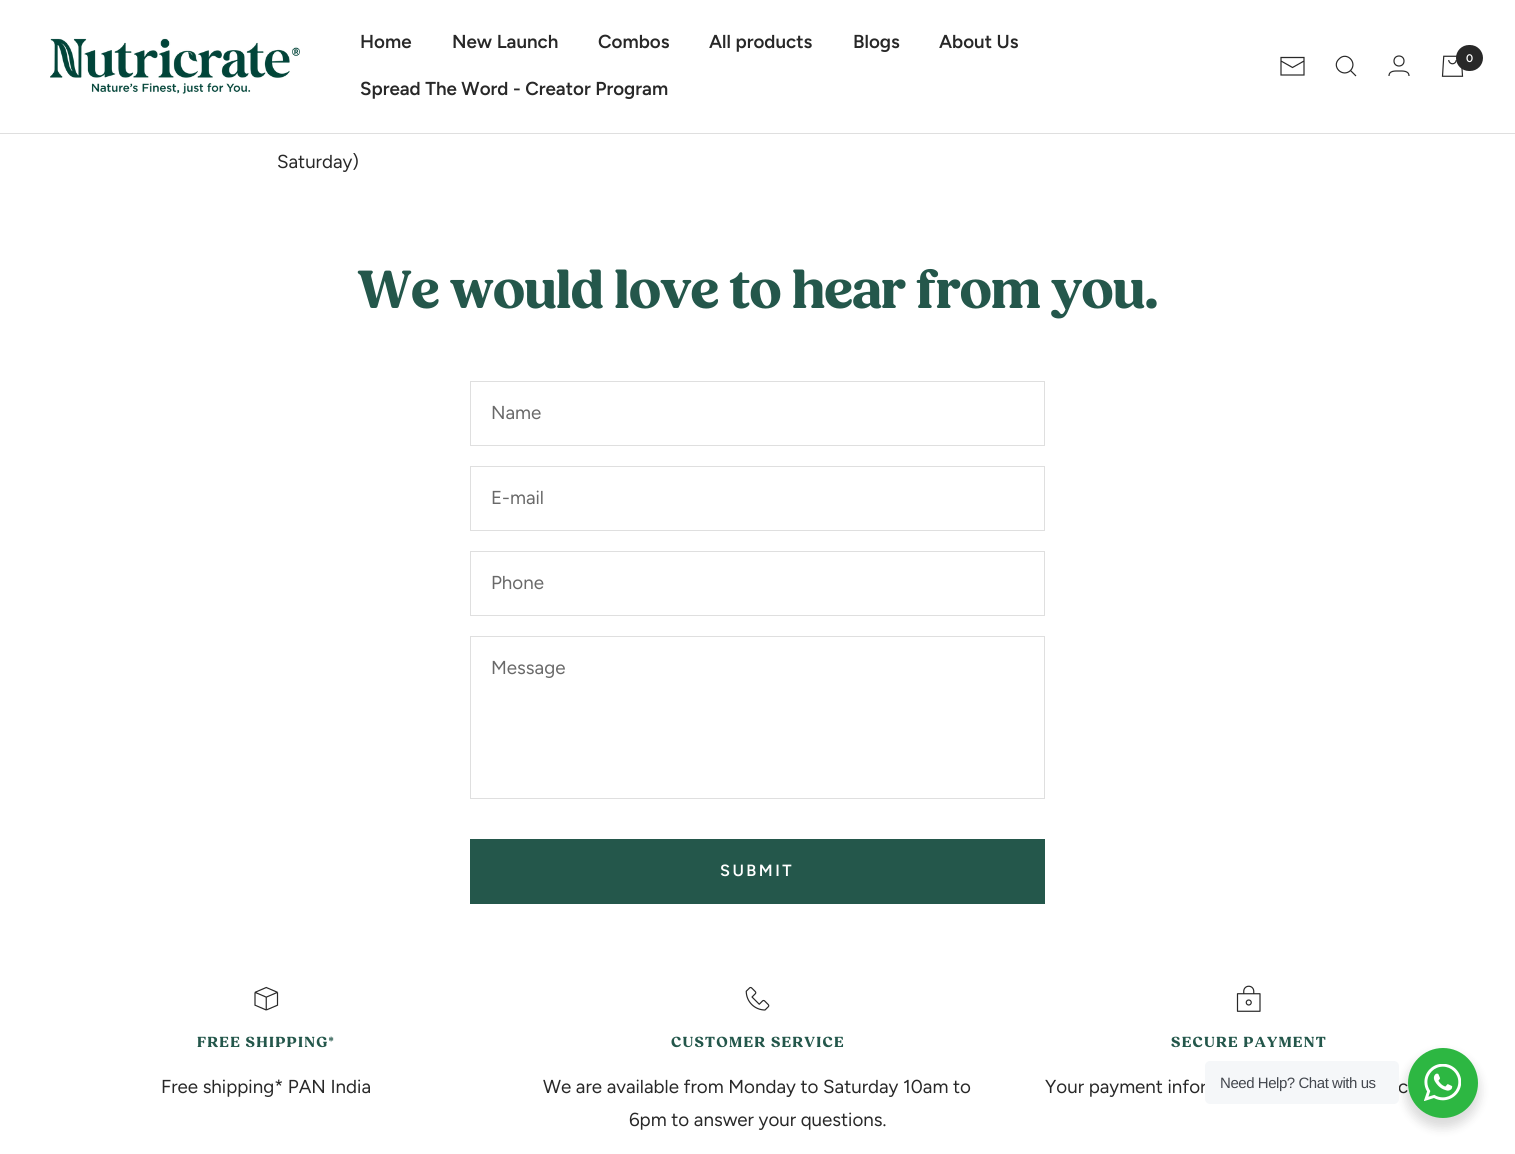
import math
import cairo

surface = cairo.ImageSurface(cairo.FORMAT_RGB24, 1515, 1154)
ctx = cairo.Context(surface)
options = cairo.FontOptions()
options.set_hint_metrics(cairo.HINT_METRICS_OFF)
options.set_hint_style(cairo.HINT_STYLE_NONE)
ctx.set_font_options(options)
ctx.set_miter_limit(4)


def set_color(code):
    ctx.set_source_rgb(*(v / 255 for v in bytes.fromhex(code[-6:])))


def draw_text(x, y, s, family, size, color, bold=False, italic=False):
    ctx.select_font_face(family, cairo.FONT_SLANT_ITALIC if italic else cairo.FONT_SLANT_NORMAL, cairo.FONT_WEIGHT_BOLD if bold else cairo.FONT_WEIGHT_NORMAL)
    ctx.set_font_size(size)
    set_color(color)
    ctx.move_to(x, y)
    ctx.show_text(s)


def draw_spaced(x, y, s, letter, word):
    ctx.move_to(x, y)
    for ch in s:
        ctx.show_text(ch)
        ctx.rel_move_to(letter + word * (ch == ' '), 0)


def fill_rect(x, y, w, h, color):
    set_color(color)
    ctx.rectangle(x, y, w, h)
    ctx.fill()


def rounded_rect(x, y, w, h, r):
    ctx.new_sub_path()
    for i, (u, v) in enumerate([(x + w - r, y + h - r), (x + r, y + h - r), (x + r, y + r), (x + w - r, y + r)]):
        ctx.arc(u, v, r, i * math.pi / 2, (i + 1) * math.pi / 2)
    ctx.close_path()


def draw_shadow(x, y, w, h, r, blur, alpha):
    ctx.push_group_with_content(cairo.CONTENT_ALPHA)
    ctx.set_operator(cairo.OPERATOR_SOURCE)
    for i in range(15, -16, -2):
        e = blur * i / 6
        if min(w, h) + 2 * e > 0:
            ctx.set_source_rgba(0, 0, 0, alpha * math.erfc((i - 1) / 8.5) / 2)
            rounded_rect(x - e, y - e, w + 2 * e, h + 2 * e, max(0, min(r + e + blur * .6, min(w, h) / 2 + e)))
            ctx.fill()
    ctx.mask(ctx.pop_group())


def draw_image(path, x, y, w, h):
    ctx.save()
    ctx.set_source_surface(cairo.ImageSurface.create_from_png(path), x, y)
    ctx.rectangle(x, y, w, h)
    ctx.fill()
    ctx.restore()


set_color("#ffffff")
ctx.paint()
fill_rect(0, 133, 1515, 1, "#dfdfdf")
draw_image("assets/img1.png", 50, 38, 250, 56)
draw_text(360, 48, "Home", "Figtree SemiBold", 18.75, "#282828")
draw_text(452, 48, "New Launch", "Figtree SemiBold", 18.75, "#282828")
draw_text(598, 48, "Combos", "Figtree SemiBold", 18.75, "#282828")
draw_text(709, 48, "All products", "Figtree SemiBold", 18.75, "#282828")
draw_text(853, 48, "Blogs", "Figtree SemiBold", 18.75, "#282828")
draw_text(939, 48, "About Us", "Figtree SemiBold", 18.75, "#282828")
draw_text(360, 95, "Spread The Word - Creator Program", "Figtree SemiBold", 18.75, "#282828")
ctx.new_path()
ctx.move_to(1304, 61)
ctx.line_to(1292.5, 67.5)
ctx.line_to(1281, 61)
ctx.move_to(1281, 57.5)
ctx.line_to(1304, 57.5)
ctx.line_to(1304, 75)
ctx.line_to(1281, 75)
ctx.close_path()
ctx.set_line_width(1.2)
ctx.stroke()
ctx.new_path()
ctx.move_to(1350.5, 70.5)
ctx.curve_to(1358, 62.5, 1346.5, 51, 1339, 59)
ctx.curve_to(1331, 66.5, 1342.5, 78, 1350.5, 70.5)
ctx.close_path()
ctx.move_to(1350.5, 70.5)
ctx.line_to(1356, 76)
ctx.stroke()
ctx.arc(1399, 61, 5, 0, 2 * math.pi)
ctx.stroke()
ctx.new_path()
ctx.move_to(1389, 76)
ctx.curve_to(1389, 70.5, 1395, 71, 1399, 71)
ctx.curve_to(1402.5, 71, 1409, 70.5, 1409, 76)
ctx.stroke()
draw_image("assets/img2.png", 1441, 55, 23, 22)
rounded_rect(1456, 45, 27, 26, 13)
ctx.fill()
draw_text(1466, 62, "0", "Figtree SemiBold", 11, "#ffffff")
draw_text(277, 168, "Saturday)", "Figtree", 18.75, "#282828")
ctx.select_font_face("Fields", cairo.FONT_SLANT_NORMAL, cairo.FONT_WEIGHT_BOLD)
ctx.set_font_size(55)
set_color("#24574b")
draw_spaced(357, 308, "We would love to hear from you.", -1.25, 0)
ctx.rectangle(470.5, 381.5, 574, 64)
set_color("#dfdfdf")
ctx.set_line_width(1)
ctx.stroke()
draw_text(491, 419, "Name", "Figtree", 18.75, "#696969")
ctx.rectangle(470.5, 466.5, 574, 64)
set_color("#dfdfdf")
ctx.stroke()
draw_text(491, 504, "E-mail", "Figtree", 18.75, "#696969")
ctx.rectangle(470.5, 551.5, 574, 64)
set_color("#dfdfdf")
ctx.stroke()
draw_text(491, 589, "Phone", "Figtree", 18.75, "#696969")
ctx.rectangle(470.5, 636.5, 574, 162)
set_color("#dfdfdf")
ctx.stroke()
draw_text(491, 674, "Message", "Figtree", 18.75, "#696969")
fill_rect(470, 839, 575, 65, "#24574b")
ctx.select_font_face("Figtree SemiBold")
ctx.set_font_size(16.25)
set_color("#ffffff")
draw_spaced(720, 876, "SUBMIT", 2.5, 0)
draw_image("assets/img3.png", 254, 986, 25, 25)
ctx.select_font_face("Fields", cairo.FONT_SLANT_NORMAL, cairo.FONT_WEIGHT_BOLD)
ctx.set_font_size(15)
set_color("#24574b")
draw_spaced(197, 1047, "FREE SHIPPING*", 1.25, 0)
draw_text(161, 1093, "Free shipping* PAN India", "Figtree", 18.75, "#282828")
draw_image("assets/img4.png", 745, 986, 25, 25)
ctx.select_font_face("Fields", cairo.FONT_SLANT_NORMAL, cairo.FONT_WEIGHT_BOLD)
ctx.set_font_size(15)
set_color("#24574b")
draw_spaced(671, 1047, "CUSTOMER SERVICE", 1.25, 0)
draw_text(543, 1093, "We are available from Monday to Saturday 10am to", "Figtree", 18.75, "#282828")
draw_text(629, 1126, "6pm to answer your questions.", "Figtree", 18.75, "#282828")
draw_image("assets/img5.png", 1236, 985, 25, 27)
ctx.select_font_face("Fields", cairo.FONT_SLANT_NORMAL, cairo.FONT_WEIGHT_BOLD)
ctx.set_font_size(15)
set_color("#24574b")
draw_spaced(1171, 1047, "SECURE PAYMENT", 1.25, 0)
draw_text(1045, 1093, "Your payment infor", "Figtree", 18.75, "#282828")
draw_text(1398, 1093, "c", "Figtree", 18.75, "#282828")
set_color("#000000")
draw_shadow(1405, 1053, 75, 75, 37.5, 5, 0.14)
set_color("#f5f7f9")
rounded_rect(1205, 1061, 194, 43, 5)
ctx.fill()
ctx.select_font_face("Liberation Sans")
ctx.set_font_size(15)
set_color("#43474e")
draw_spaced(1220, 1088, "Need Help? Chat with us", -0.45, 0)
set_color("#2db742")
ctx.new_path()
ctx.arc(1443, 1083, 35, 0, 2 * math.pi)
ctx.fill()
draw_image("assets/img6.png", 1424, 1064, 37, 37)
surface.write_to_png("output.png")
